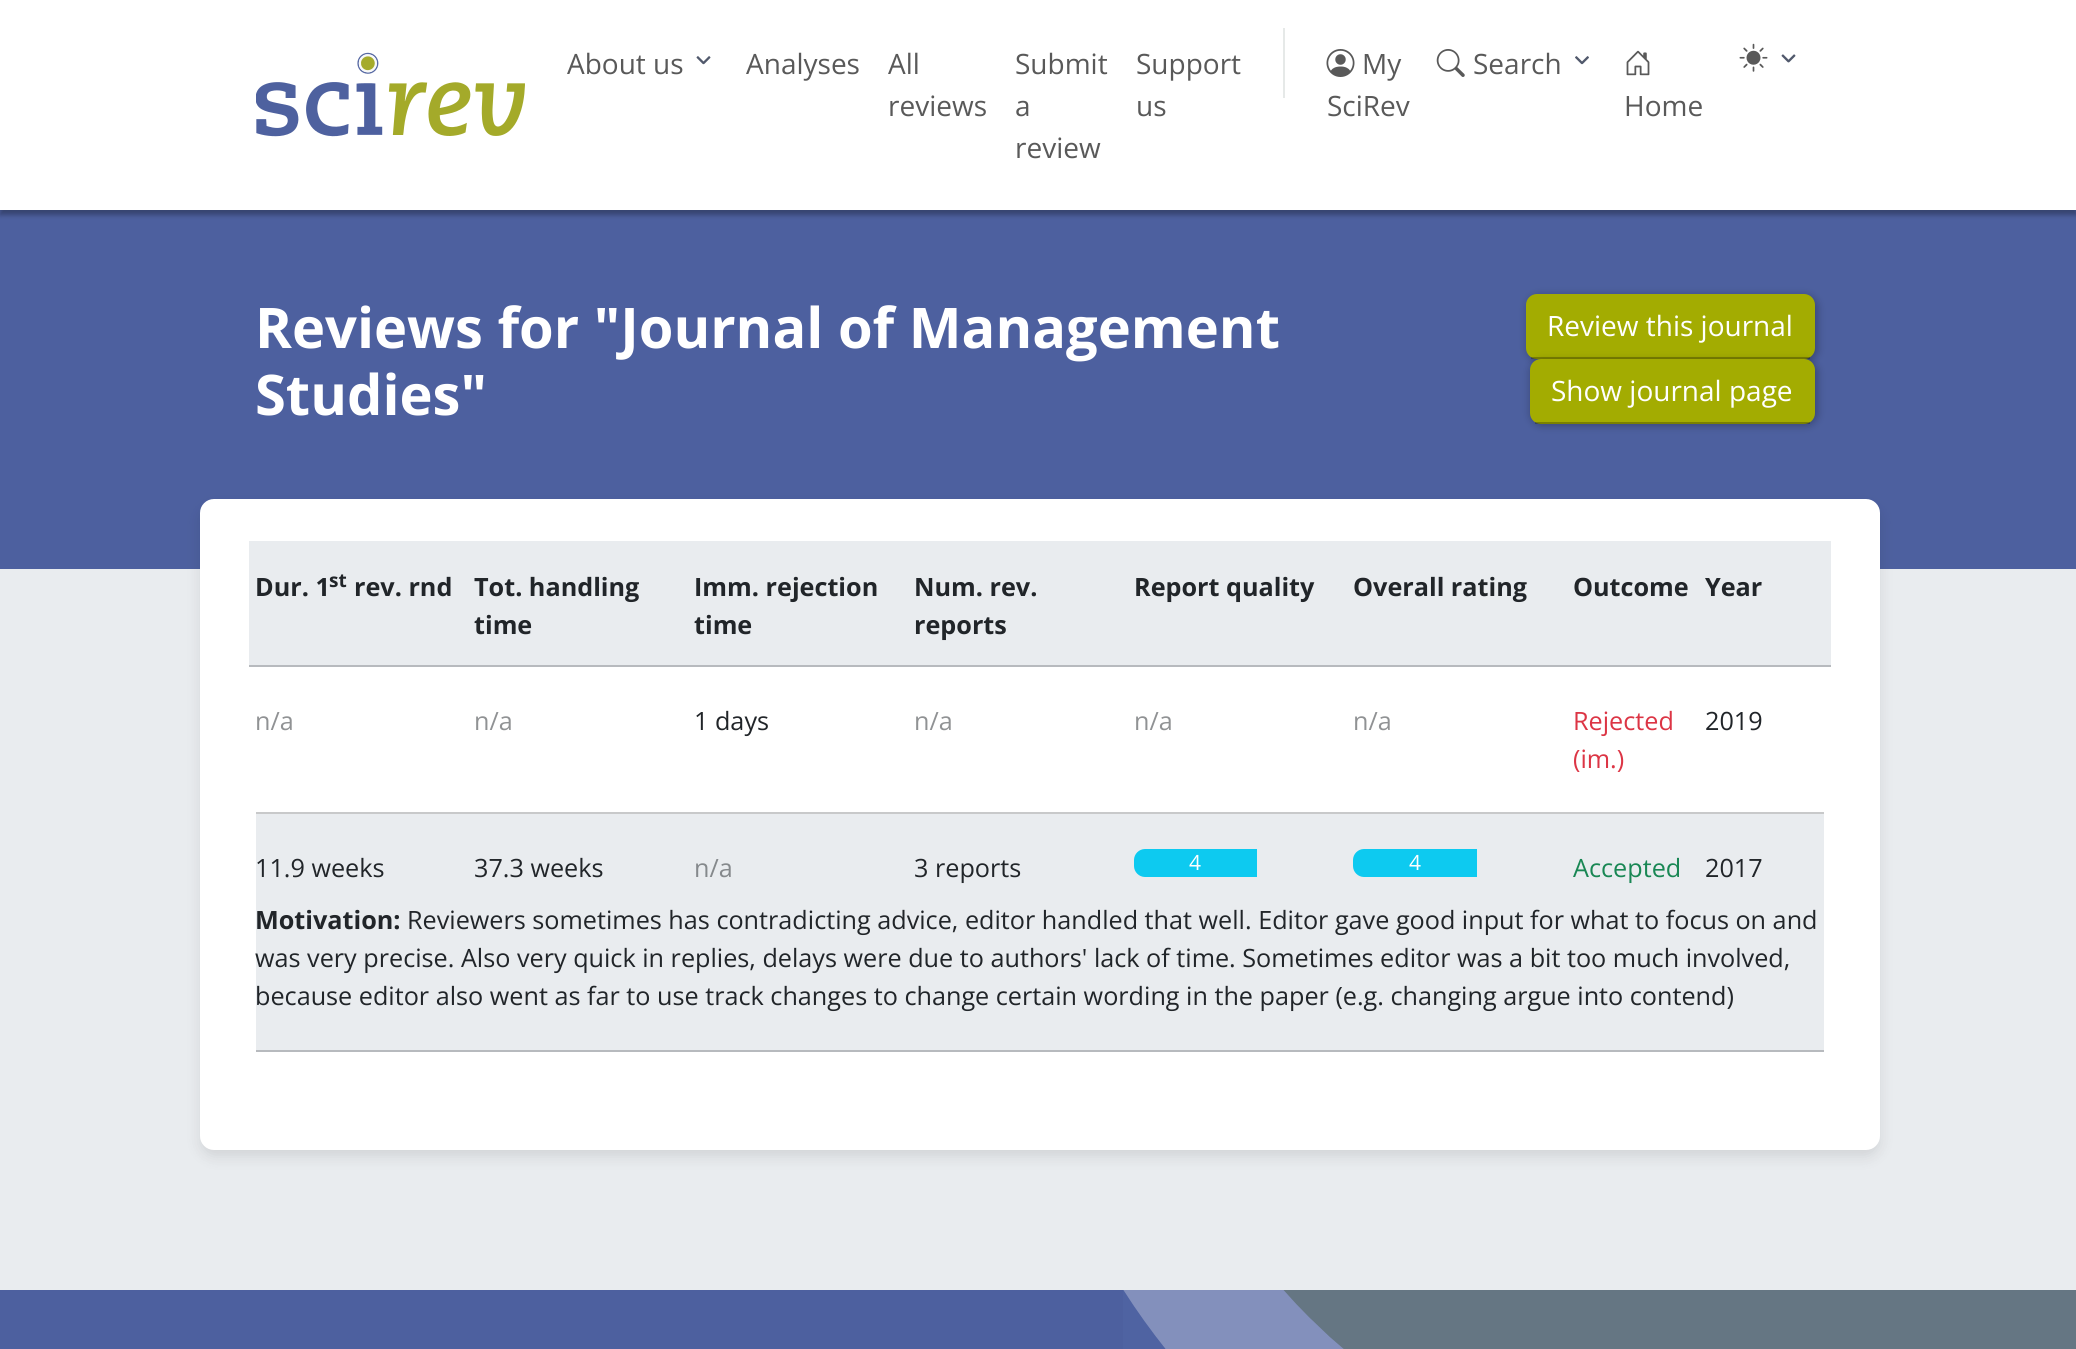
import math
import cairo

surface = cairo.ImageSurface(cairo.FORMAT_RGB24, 2076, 1349)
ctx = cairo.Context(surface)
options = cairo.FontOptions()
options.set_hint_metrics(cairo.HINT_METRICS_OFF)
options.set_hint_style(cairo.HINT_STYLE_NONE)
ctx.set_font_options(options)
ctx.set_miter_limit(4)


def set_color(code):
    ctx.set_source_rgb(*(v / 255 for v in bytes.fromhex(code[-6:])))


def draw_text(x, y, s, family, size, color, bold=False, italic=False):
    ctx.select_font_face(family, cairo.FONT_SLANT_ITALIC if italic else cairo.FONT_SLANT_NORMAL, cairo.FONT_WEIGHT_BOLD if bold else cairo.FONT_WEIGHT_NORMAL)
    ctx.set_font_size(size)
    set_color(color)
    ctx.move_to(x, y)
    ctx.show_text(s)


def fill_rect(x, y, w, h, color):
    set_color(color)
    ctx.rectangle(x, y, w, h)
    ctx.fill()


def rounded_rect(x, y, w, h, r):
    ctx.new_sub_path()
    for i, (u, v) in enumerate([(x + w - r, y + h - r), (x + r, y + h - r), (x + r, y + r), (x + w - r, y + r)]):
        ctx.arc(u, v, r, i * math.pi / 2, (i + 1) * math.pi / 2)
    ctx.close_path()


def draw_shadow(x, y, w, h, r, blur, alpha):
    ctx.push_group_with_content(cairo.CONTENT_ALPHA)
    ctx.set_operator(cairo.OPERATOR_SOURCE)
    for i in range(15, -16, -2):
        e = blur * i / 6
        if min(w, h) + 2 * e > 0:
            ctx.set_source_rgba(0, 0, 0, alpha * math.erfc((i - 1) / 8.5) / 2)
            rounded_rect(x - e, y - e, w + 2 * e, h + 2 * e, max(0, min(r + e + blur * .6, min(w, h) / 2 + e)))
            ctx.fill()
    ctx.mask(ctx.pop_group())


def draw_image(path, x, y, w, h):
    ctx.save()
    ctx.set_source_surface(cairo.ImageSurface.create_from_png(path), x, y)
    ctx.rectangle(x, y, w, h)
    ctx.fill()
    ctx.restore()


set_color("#e9ecef")
ctx.paint()
fill_rect(0, 210, 2076, 359, "#4d609f")
set_color("#000000")
draw_shadow(0, 5, 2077, 210, 0, 2.5, 0.3)
fill_rect(0, 0, 2076, 210, "#ffffff")
draw_image("assets/img1.png", 256, 52, 269, 85)
draw_text(567, 74, "About us", "Open Sans", 28, "#595959")
draw_image("assets/img2.png", 696, 56, 15, 9)
draw_text(746, 74, "Analyses", "Open Sans", 28, "#595959")
draw_text(888, 74, "All", "Open Sans", 28, "#595959")
draw_text(888, 116, "reviews", "Open Sans", 28, "#595959")
draw_text(1015, 74, "Submit", "Open Sans", 28, "#595959")
draw_text(1015, 116, "a", "Open Sans", 28, "#595959")
draw_text(1015, 158, "review", "Open Sans", 28, "#595959")
draw_text(1136, 74, "Support", "Open Sans", 28, "#595959")
draw_text(1136, 116, "us", "Open Sans", 28, "#595959")
fill_rect(1283, 28, 2, 70, "#e6e9e8")
draw_image("assets/img3.png", 1326, 49, 29, 28)
draw_text(1362, 74, "My", "Open Sans", 28, "#595959")
draw_text(1327, 116, "SciRev", "Open Sans", 28, "#595959")
draw_image("assets/img4.png", 1436, 49, 29, 28)
draw_text(1473, 74, "Search", "Open Sans", 28, "#595959")
draw_image("assets/img5.png", 1575, 56, 14, 9)
draw_image("assets/img6.png", 1626, 50, 24, 26)
draw_text(1624, 116, "Home", "Open Sans", 28, "#595959")
draw_image("assets/img7.png", 1739, 43, 29, 29)
draw_image("assets/img8.png", 1781, 54, 15, 9)
draw_text(255, 348, "Reviews for \"Journal of Management", "Open Sans", 56, "#ffffff", bold=True)
draw_text(255, 415, "Studies\"", "Open Sans", 56, "#ffffff", bold=True)
set_color("#000000")
draw_shadow(1528, 296, 289, 65, 11, 4.5, 0.3)
set_color("#a3ac01")
rounded_rect(1526, 294, 289, 65, 11)
ctx.fill()
ctx.set_source_rgba(0, 0, 0, 0.25)
ctx.rectangle(1531, 357, 279, 2)
ctx.fill()
draw_text(1547, 336, "Review this journal", "Open Sans", 28, "#ffffff")
set_color("#000000")
draw_shadow(1531, 361, 286, 64, 11, 4.5, 0.3)
set_color("#a3ac01")
rounded_rect(1530, 359, 285, 65, 11)
ctx.fill()
ctx.set_source_rgba(0, 0, 0, 0.25)
ctx.rectangle(1535, 422, 275, 2)
ctx.fill()
draw_text(1551, 401, "Show journal page", "Open Sans", 28, "#ffffff")
set_color("#000000")
draw_shadow(200, 506, 1680, 651, 14, 7, 0.1)
set_color("#ffffff")
rounded_rect(200, 499, 1680, 651, 14)
ctx.fill()
fill_rect(249, 541, 1582, 124, "#e9ecef")
fill_rect(249, 665, 1582, 2, "#b7babe")
draw_text(255, 596, "Dur. 1", "Open Sans", 25.2, "#212529", bold=True)
draw_text(329, 587, "st", "Open Sans", 19, "#212529", bold=True)
draw_text(354, 596, "rev. rnd", "Open Sans", 25.2, "#212529", bold=True)
draw_text(474, 596, "Tot. handling", "Open Sans", 25.2, "#212529", bold=True)
draw_text(474, 634, "time", "Open Sans", 25.2, "#212529", bold=True)
draw_text(694, 596, "Imm. rejection", "Open Sans", 25.2, "#212529", bold=True)
draw_text(694, 634, "time", "Open Sans", 25.2, "#212529", bold=True)
draw_text(914, 596, "Num. rev.", "Open Sans", 25.2, "#212529", bold=True)
draw_text(914, 634, "reports", "Open Sans", 25.2, "#212529", bold=True)
draw_text(1134, 596, "Report quality", "Open Sans", 25.2, "#212529", bold=True)
draw_text(1353, 596, "Overall rating", "Open Sans", 25.2, "#212529", bold=True)
draw_text(1573, 596, "Outcome", "Open Sans", 25.2, "#212529", bold=True)
draw_text(1705, 596, "Year", "Open Sans", 25.2, "#212529", bold=True)
fill_rect(256, 812, 1568, 2, "#c8c9ca")
draw_text(255, 730, "n/a", "Open Sans", 25.2, "#909294")
draw_text(474, 730, "n/a", "Open Sans", 25.2, "#909294")
draw_text(694, 730, "1 days", "Open Sans", 25.2, "#212529")
draw_text(914, 730, "n/a", "Open Sans", 25.2, "#909294")
draw_text(1134, 730, "n/a", "Open Sans", 25.2, "#909294")
draw_text(1353, 730, "n/a", "Open Sans", 25.2, "#909294")
draw_text(1573, 730, "Rejected", "Open Sans", 25.2, "#dc3545")
draw_text(1573, 768, "(im.)", "Open Sans", 25.2, "#dc3545")
draw_text(1705, 730, "2019", "Open Sans", 25.2, "#212529")
fill_rect(256, 814, 1568, 236, "#e9ecef")
fill_rect(256, 1050, 1568, 2, "#b7babe")
draw_text(255, 877, "11.9 weeks", "Open Sans", 25.2, "#212529")
draw_text(474, 877, "37.3 weeks", "Open Sans", 25.2, "#212529")
draw_text(694, 877, "n/a", "Open Sans", 25.2, "#85898c")
draw_text(914, 877, "3 reports", "Open Sans", 25.2, "#212529")
set_color("#0dcaf0")
ctx.new_path()
ctx.move_to(1145, 849)
ctx.line_to(1257, 849)
ctx.line_to(1257, 877)
ctx.line_to(1145, 877)
ctx.curve_to(1139, 877, 1134, 872, 1134, 866)
ctx.line_to(1134, 860)
ctx.curve_to(1134, 854, 1139, 849, 1145, 849)
ctx.close_path()
ctx.fill()
draw_text(1189, 870, "4", "Open Sans", 21, "#ffffff")
set_color("#0dcaf0")
ctx.new_path()
ctx.move_to(1364, 849)
ctx.line_to(1477, 849)
ctx.line_to(1477, 877)
ctx.line_to(1364, 877)
ctx.curve_to(1358, 877, 1353, 872, 1353, 866)
ctx.line_to(1353, 860)
ctx.curve_to(1353, 854, 1358, 849, 1364, 849)
ctx.close_path()
ctx.fill()
draw_text(1409, 870, "4", "Open Sans", 21, "#ffffff")
draw_text(1573, 877, "Accepted", "Open Sans", 25.2, "#198754")
draw_text(1705, 877, "2017", "Open Sans", 25.2, "#212529")
draw_text(255, 929, "Motivation:", "Open Sans", 25.2, "#212529", bold=True)
draw_text(407, 929, "Reviewers sometimes has contradicting advice, editor handled that well. Editor gave good input for what to focus on and", "Open Sans", 25.2, "#212529")
draw_text(255, 967, "was very precise. Also very quick in replies, delays were due to authors' lack of time. Sometimes editor was a bit too much involved,", "Open Sans", 25.2, "#212529")
draw_text(255, 1005, "because editor also went as far to use track changes to change certain wording in the paper (e.g. changing argue into contend)", "Open Sans", 25.2, "#212529")
fill_rect(0, 1290, 1123, 59, "#4d609f")
draw_image("assets/img9.png", 1123, 1290, 953, 59)
surface.write_to_png("output.png")
